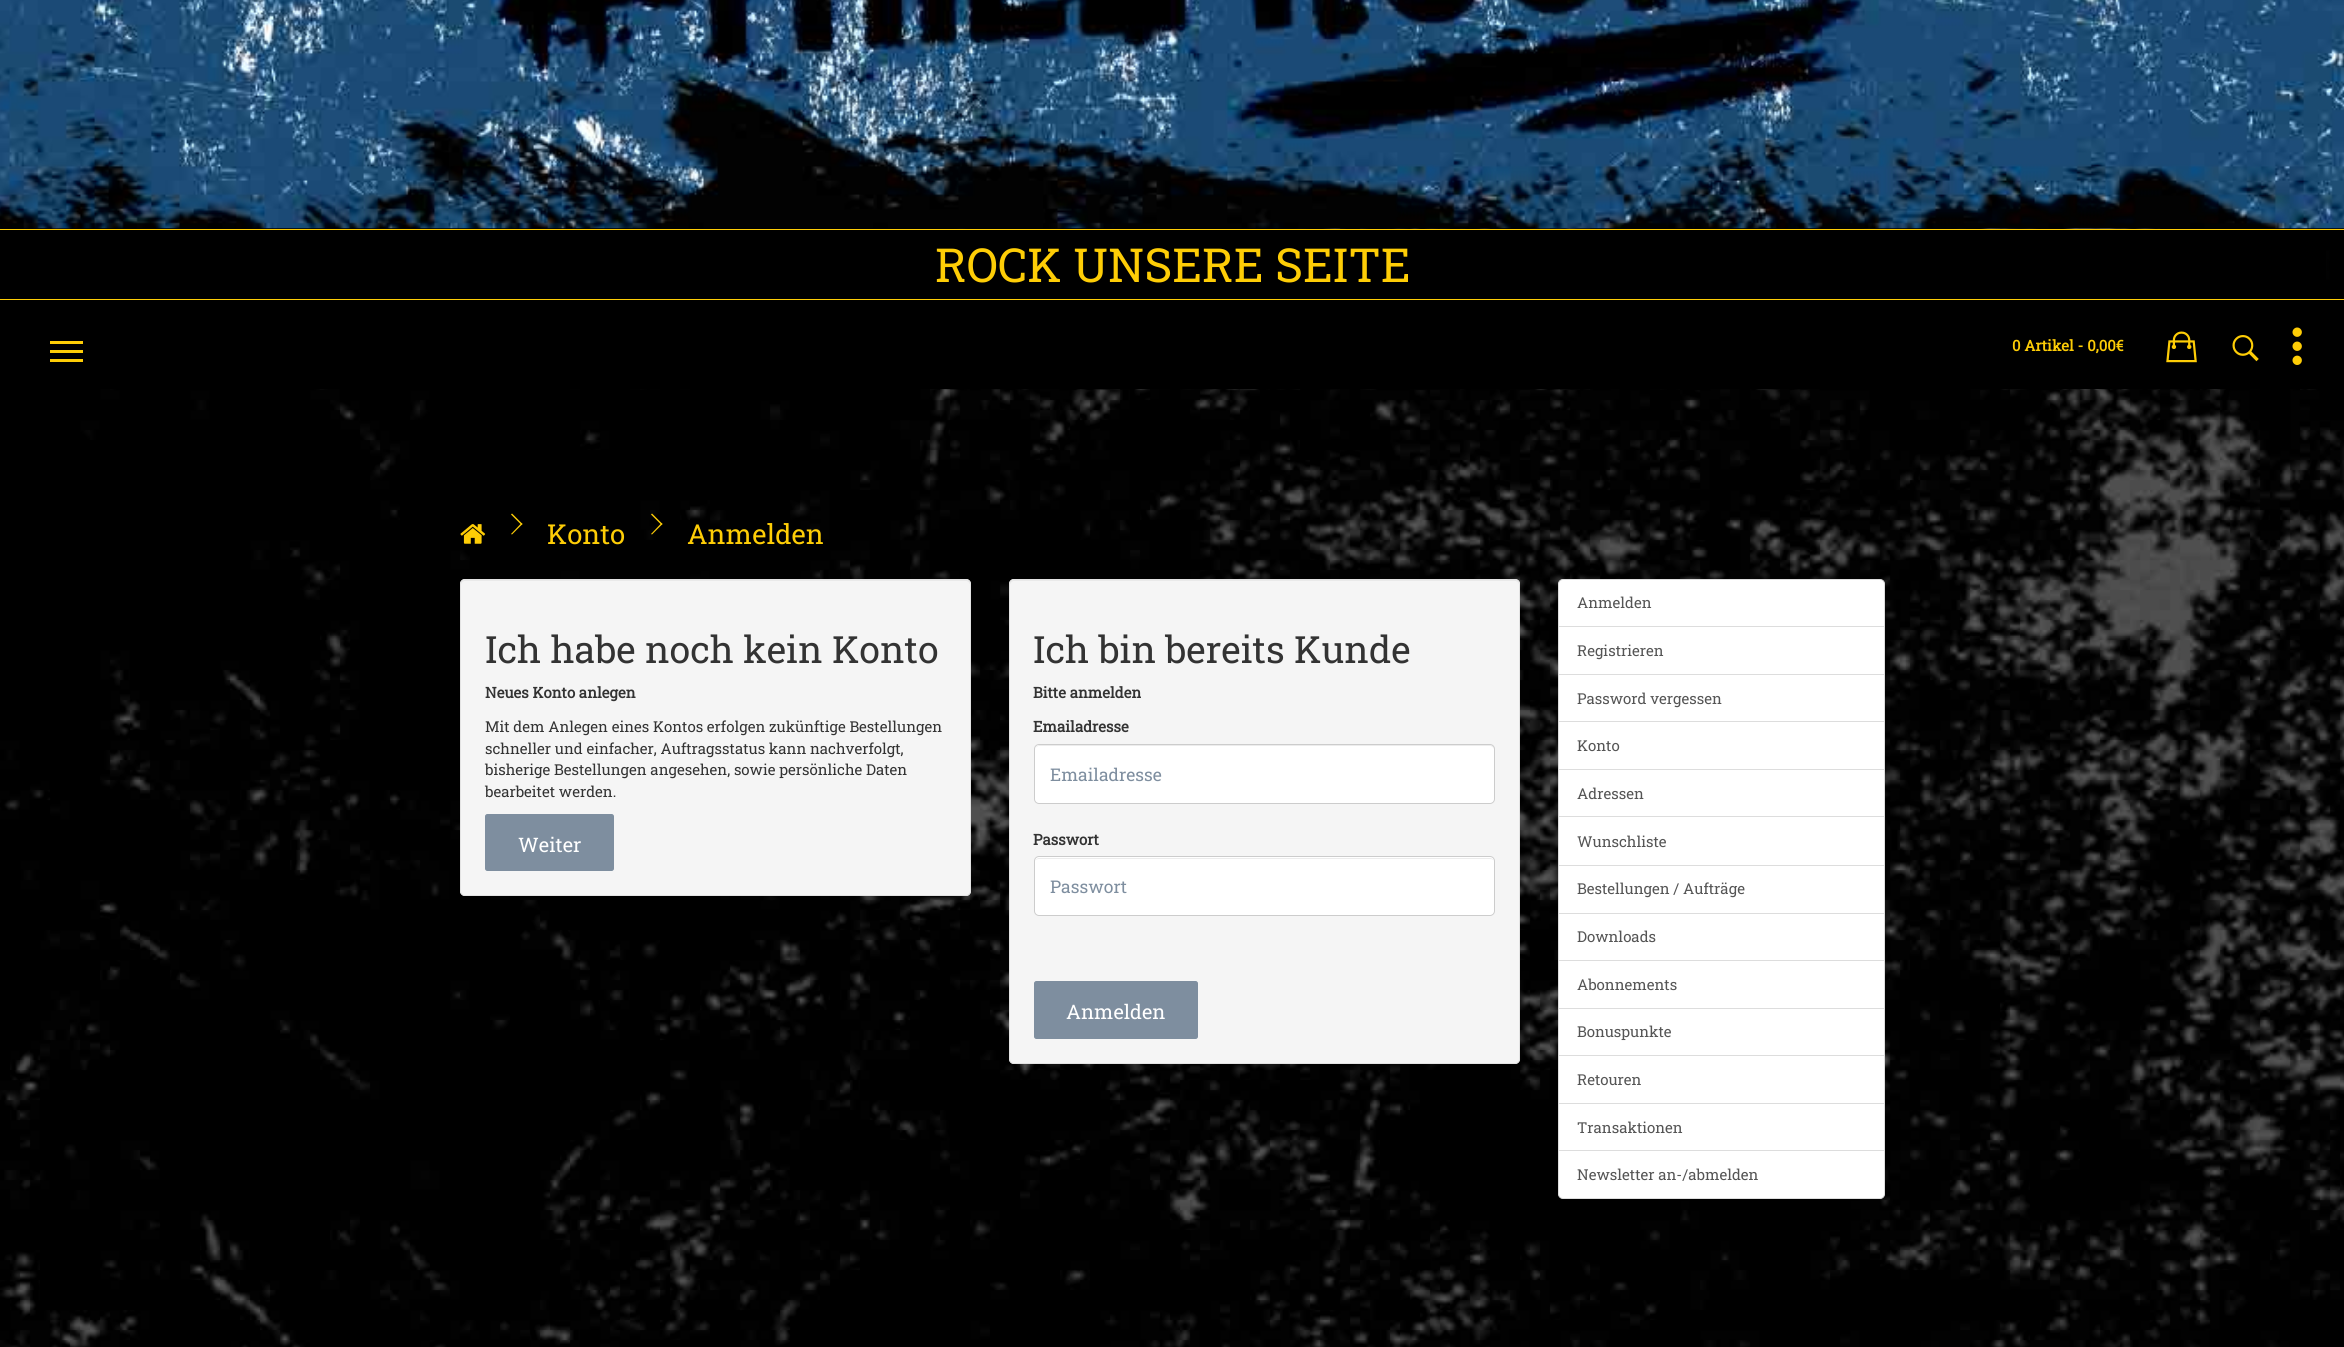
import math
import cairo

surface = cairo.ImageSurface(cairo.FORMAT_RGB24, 2344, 1347)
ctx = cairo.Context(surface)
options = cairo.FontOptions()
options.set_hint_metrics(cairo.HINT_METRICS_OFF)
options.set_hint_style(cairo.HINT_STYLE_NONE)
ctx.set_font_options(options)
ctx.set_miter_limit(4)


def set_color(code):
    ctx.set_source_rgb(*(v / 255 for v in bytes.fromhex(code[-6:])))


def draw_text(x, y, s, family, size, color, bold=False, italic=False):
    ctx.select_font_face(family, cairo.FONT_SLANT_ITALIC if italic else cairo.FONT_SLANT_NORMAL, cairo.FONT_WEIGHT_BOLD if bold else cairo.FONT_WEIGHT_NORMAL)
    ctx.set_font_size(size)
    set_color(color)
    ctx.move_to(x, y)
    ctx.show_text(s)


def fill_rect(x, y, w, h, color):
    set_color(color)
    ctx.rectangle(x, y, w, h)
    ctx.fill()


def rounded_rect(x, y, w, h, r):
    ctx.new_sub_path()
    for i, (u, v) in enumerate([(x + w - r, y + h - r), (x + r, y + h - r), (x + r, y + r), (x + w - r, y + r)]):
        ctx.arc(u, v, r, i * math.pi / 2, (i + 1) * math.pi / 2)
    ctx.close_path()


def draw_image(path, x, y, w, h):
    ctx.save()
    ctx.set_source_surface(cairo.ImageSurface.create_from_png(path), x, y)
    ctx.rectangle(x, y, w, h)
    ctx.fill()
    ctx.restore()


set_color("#ffffff")
ctx.paint()
draw_image("assets/img1.png", 0, 228, 2344, 1119)
draw_image("assets/img2.png", 0, 0, 2344, 229)
fill_rect(0, 230, 2326, 69, "#000000")
fill_rect(0, 229, 2344, 1, "#fecd06")
fill_rect(0, 299, 2344, 1, "#fecd06")
draw_text(935, 282, "ROCK UNSERE SEITE", "Roboto Slab", 46.9, "#fecd06")
fill_rect(0, 300, 2320, 89, "#000000")
fill_rect(50, 341, 33, 3, "#fecd06")
fill_rect(50, 350, 33, 3, "#fecd06")
fill_rect(50, 359, 33, 3, "#fecd06")
draw_text(2012, 351, "0 Artikel - 0,00€", "Roboto Slab", 15, "#fecd06", bold=True)
draw_image("assets/img3.png", 2166, 331, 31, 32)
draw_image("assets/img4.png", 2232, 335, 27, 27)
draw_image("assets/img5.png", 2292, 327, 10, 38)
draw_image("assets/img6.png", 460, 524, 26, 20)
ctx.new_path()
ctx.move_to(511, 514.5)
ctx.line_to(512, 513.5)
ctx.line_to(522.5, 524)
ctx.line_to(521.5, 525)
ctx.close_path()
ctx.fill()
ctx.new_path()
ctx.move_to(511, 534)
ctx.line_to(521.5, 523)
ctx.line_to(522.5, 524)
ctx.line_to(512, 534.5)
ctx.close_path()
ctx.fill()
draw_text(547, 544, "Konto", "Roboto Slab", 27.5, "#fecd06")
ctx.new_path()
ctx.move_to(651, 514.5)
ctx.line_to(652, 513.5)
ctx.line_to(662.5, 524)
ctx.line_to(661.5, 525)
ctx.close_path()
ctx.fill()
ctx.new_path()
ctx.move_to(651, 534)
ctx.line_to(661.5, 523)
ctx.line_to(662.5, 524)
ctx.line_to(652, 534.5)
ctx.close_path()
ctx.fill()
draw_text(687, 544, "Anmelden", "Roboto Slab", 27.5, "#fecd06")
set_color("#f5f5f5")
rounded_rect(460, 579, 511, 317, 5)
ctx.fill()
set_color("#e9e9e9")
ctx.new_path()
ctx.move_to(465, 581)
ctx.line_to(966, 581)
ctx.curve_to(968, 581, 970, 583, 970, 585)
ctx.line_to(970, 584)
ctx.curve_to(970, 582, 968, 580, 966, 580)
ctx.line_to(465, 580)
ctx.curve_to(463, 580, 461, 582, 461, 584)
ctx.line_to(461, 585)
ctx.curve_to(461, 583, 463, 581, 465, 581)
ctx.close_path()
ctx.fill()
rounded_rect(460.5, 579.5, 510, 316, 4.5)
set_color("#e3e3e3")
ctx.set_line_width(1)
ctx.stroke()
draw_text(485, 663, "Ich habe noch kein Konto", "Roboto Slab", 37.5, "#333333")
draw_text(485, 698, "Neues Konto anlegen", "Roboto Slab", 15, "#333333", bold=True)
draw_text(485, 732, "Mit dem Anlegen eines Kontos erfolgen zukünftige Bestellungen", "Roboto Slab", 15, "#333333")
draw_text(485, 754, "schneller und einfacher, Auftragsstatus kann nachverfolgt,", "Roboto Slab", 15, "#333333")
draw_text(485, 775, "bisherige Bestellungen angesehen, sowie persönliche Daten", "Roboto Slab", 15, "#333333")
draw_text(485, 797, "bearbeitet werden.", "Roboto Slab", 15, "#333333")
set_color("#7e8e9f")
rounded_rect(485.5, 814.5, 128, 56, 2)
ctx.fill_preserve()
ctx.stroke()
draw_text(518, 852, "Weiter", "Roboto Slab", 20, "#ffffff")
set_color("#f5f5f5")
rounded_rect(1009, 579, 511, 485, 5)
ctx.fill()
set_color("#e9e9e9")
ctx.new_path()
ctx.move_to(1014, 581)
ctx.line_to(1515, 581)
ctx.curve_to(1517, 581, 1519, 583, 1519, 585)
ctx.line_to(1519, 584)
ctx.curve_to(1519, 582, 1517, 580, 1515, 580)
ctx.line_to(1014, 580)
ctx.curve_to(1012, 580, 1010, 582, 1010, 584)
ctx.line_to(1010, 585)
ctx.curve_to(1010, 583, 1012, 581, 1014, 581)
ctx.close_path()
ctx.fill()
rounded_rect(1009.5, 579.5, 510, 484, 4.5)
set_color("#e3e3e3")
ctx.stroke()
draw_text(1033, 663, "Ich bin bereits Kunde", "Roboto Slab", 37.5, "#333333")
draw_text(1033, 698, "Bitte anmelden", "Roboto Slab", 15, "#333333", bold=True)
draw_text(1033, 732, "Emailadresse", "Roboto Slab", 15, "#333333", bold=True)
set_color("#ffffff")
rounded_rect(1034, 744, 461, 60, 5)
ctx.fill()
set_color("#ececec")
ctx.new_path()
ctx.move_to(1039, 746)
ctx.line_to(1490, 746)
ctx.curve_to(1492, 746, 1494, 748, 1494, 750)
ctx.curve_to(1494, 747, 1493, 745, 1490, 745)
ctx.line_to(1039, 745)
ctx.line_to(1037, 746)
ctx.line_to(1036, 747)
ctx.line_to(1035, 750)
ctx.curve_to(1035, 748, 1037, 746, 1039, 746)
ctx.close_path()
ctx.fill()
rounded_rect(1034.5, 744.5, 460, 59, 4.5)
set_color("#cccccc")
ctx.stroke()
draw_text(1050, 781, "Emailadresse", "Roboto Slab", 17.5, "#7e8e9f")
draw_text(1033, 845, "Passwort", "Roboto Slab", 15, "#333333", bold=True)
set_color("#ffffff")
rounded_rect(1034, 856, 461, 60, 5)
ctx.fill()
set_color("#ececec")
ctx.new_path()
ctx.move_to(1039, 859)
ctx.line_to(1490, 859)
ctx.curve_to(1492, 859, 1494, 860, 1494, 862)
ctx.curve_to(1494, 860, 1492, 858, 1490, 858)
ctx.line_to(1039, 858)
ctx.curve_to(1037, 858, 1035, 860, 1035, 862)
ctx.curve_to(1035, 860, 1037, 859, 1039, 859)
ctx.close_path()
ctx.fill()
rounded_rect(1034.5, 856.5, 460, 59, 4.5)
set_color("#cccccc")
ctx.stroke()
draw_text(1050, 893, "Passwort", "Roboto Slab", 17.5, "#7e8e9f")
rounded_rect(1034.5, 981.5, 163, 57, 2)
ctx.fill_preserve()
ctx.stroke()
draw_text(1066, 1019, "Anmelden", "Roboto Slab", 20, "#ffffff")
ctx.new_path()
ctx.move_to(1563, 579.5)
ctx.line_to(1880, 579.5)
ctx.curve_to(1882.5, 579.5, 1884.5, 581.5, 1884.5, 584)
ctx.line_to(1884.5, 627.5)
ctx.line_to(1558.5, 627.5)
ctx.line_to(1558.5, 584)
ctx.curve_to(1558.5, 581.5, 1560.5, 579.5, 1563, 579.5)
ctx.close_path()
ctx.fill_preserve()
set_color("#dddddd")
ctx.stroke()
draw_text(1577, 608, "Anmelden", "Roboto Slab", 15, "#555555")
set_color("#ffffff")
ctx.rectangle(1558.5, 626.5, 326, 48)
ctx.fill_preserve()
set_color("#dddddd")
ctx.stroke()
draw_text(1577, 656, "Registrieren", "Roboto Slab", 15, "#555555")
fill_rect(1559, 675, 325, 46, "#ffffff")
ctx.rectangle(1558.5, 674.5, 326, 48)
set_color("#dddddd")
ctx.stroke()
draw_text(1577, 704, "Password vergessen", "Roboto Slab", 15, "#555555")
set_color("#ffffff")
ctx.rectangle(1558.5, 721.5, 326, 48)
ctx.fill_preserve()
set_color("#dddddd")
ctx.stroke()
draw_text(1577, 751, "Konto", "Roboto Slab", 15, "#555555")
fill_rect(1559, 770, 325, 46, "#ffffff")
ctx.rectangle(1558.5, 769.5, 326, 48)
set_color("#dddddd")
ctx.stroke()
draw_text(1577, 799, "Adressen", "Roboto Slab", 15, "#555555")
set_color("#ffffff")
ctx.rectangle(1558.5, 816.5, 326, 49)
ctx.fill_preserve()
set_color("#dddddd")
ctx.stroke()
draw_text(1577, 847, "Wunschliste", "Roboto Slab", 15, "#555555")
set_color("#ffffff")
ctx.rectangle(1558.5, 865.5, 326, 48)
ctx.fill_preserve()
set_color("#dddddd")
ctx.stroke()
draw_text(1577, 894, "Bestellungen / Aufträge", "Roboto Slab", 15, "#555555")
set_color("#ffffff")
ctx.rectangle(1558.5, 913.5, 326, 47)
ctx.fill_preserve()
set_color("#dddddd")
ctx.stroke()
draw_text(1577, 942, "Downloads", "Roboto Slab", 15, "#555555")
set_color("#ffffff")
ctx.rectangle(1558.5, 960.5, 326, 48)
ctx.fill_preserve()
set_color("#dddddd")
ctx.stroke()
draw_text(1577, 990, "Abonnements", "Roboto Slab", 15, "#555555")
set_color("#ffffff")
ctx.rectangle(1558.5, 1008.5, 326, 47)
ctx.fill_preserve()
set_color("#dddddd")
ctx.stroke()
draw_text(1577, 1037, "Bonuspunkte", "Roboto Slab", 15, "#555555")
set_color("#ffffff")
ctx.rectangle(1558.5, 1055.5, 326, 48)
ctx.fill_preserve()
set_color("#dddddd")
ctx.stroke()
draw_text(1577, 1085, "Retouren", "Roboto Slab", 15, "#555555")
set_color("#ffffff")
ctx.rectangle(1558.5, 1103.5, 326, 47)
ctx.fill_preserve()
set_color("#dddddd")
ctx.stroke()
draw_text(1577, 1133, "Transaktionen", "Roboto Slab", 15, "#555555")
set_color("#ffffff")
ctx.new_path()
ctx.move_to(1558.5, 1150.5)
ctx.line_to(1884.5, 1150.5)
ctx.line_to(1884.5, 1194)
ctx.curve_to(1884.5, 1196.5, 1882.5, 1198.5, 1880, 1198.5)
ctx.line_to(1563, 1198.5)
ctx.curve_to(1560.5, 1198.5, 1558.5, 1196.5, 1558.5, 1194)
ctx.close_path()
ctx.fill_preserve()
set_color("#dddddd")
ctx.stroke()
draw_text(1577, 1180, "Newsletter an-/abmelden", "Roboto Slab", 15, "#555555")
surface.write_to_png("output.png")
